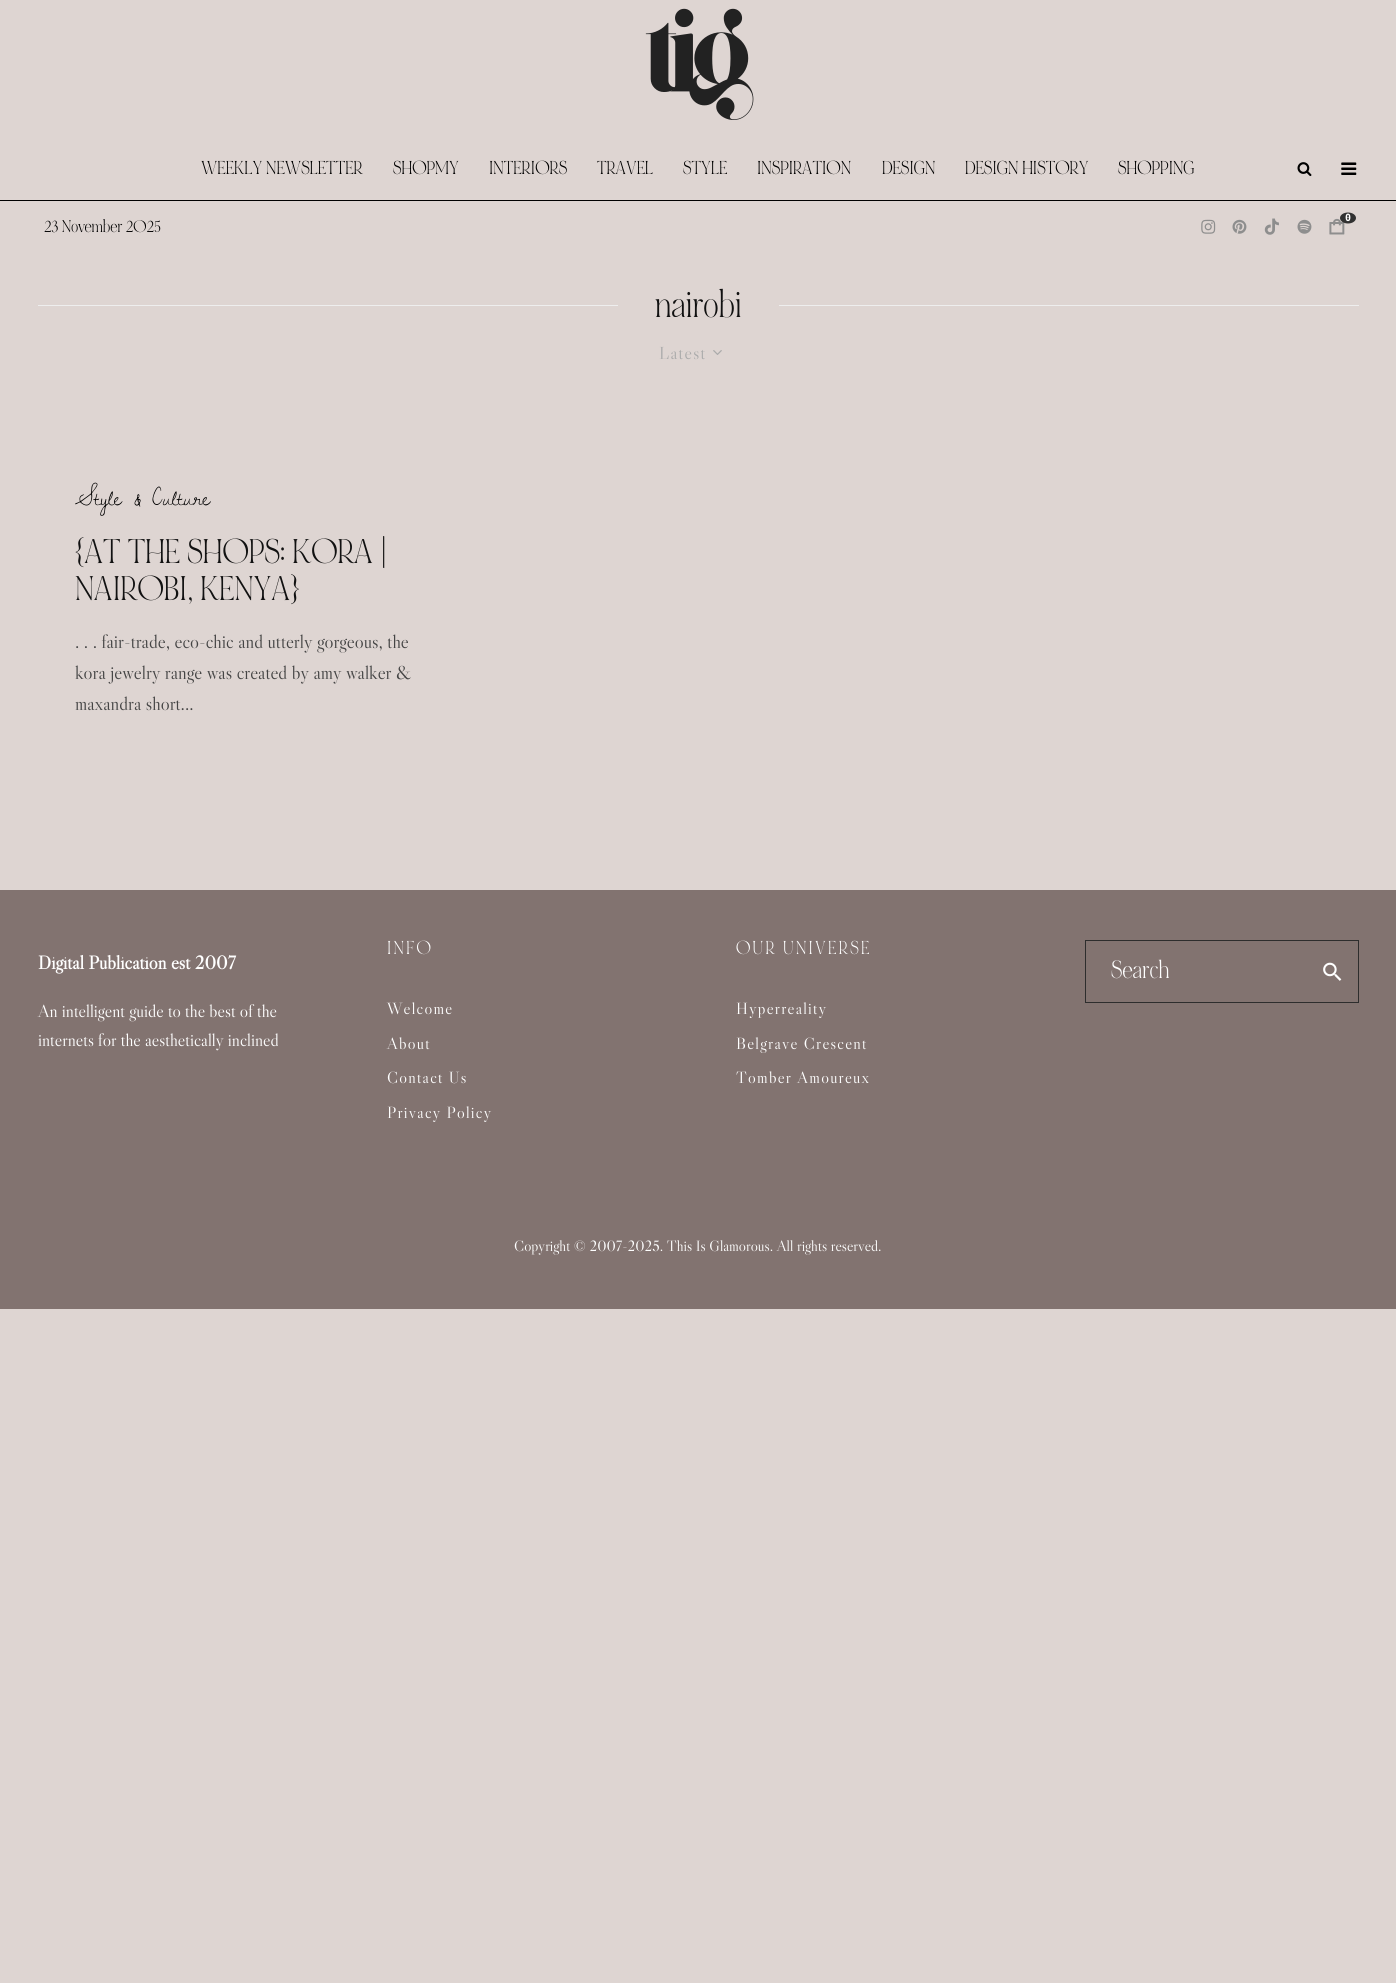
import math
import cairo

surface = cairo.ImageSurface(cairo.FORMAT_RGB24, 1396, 1983)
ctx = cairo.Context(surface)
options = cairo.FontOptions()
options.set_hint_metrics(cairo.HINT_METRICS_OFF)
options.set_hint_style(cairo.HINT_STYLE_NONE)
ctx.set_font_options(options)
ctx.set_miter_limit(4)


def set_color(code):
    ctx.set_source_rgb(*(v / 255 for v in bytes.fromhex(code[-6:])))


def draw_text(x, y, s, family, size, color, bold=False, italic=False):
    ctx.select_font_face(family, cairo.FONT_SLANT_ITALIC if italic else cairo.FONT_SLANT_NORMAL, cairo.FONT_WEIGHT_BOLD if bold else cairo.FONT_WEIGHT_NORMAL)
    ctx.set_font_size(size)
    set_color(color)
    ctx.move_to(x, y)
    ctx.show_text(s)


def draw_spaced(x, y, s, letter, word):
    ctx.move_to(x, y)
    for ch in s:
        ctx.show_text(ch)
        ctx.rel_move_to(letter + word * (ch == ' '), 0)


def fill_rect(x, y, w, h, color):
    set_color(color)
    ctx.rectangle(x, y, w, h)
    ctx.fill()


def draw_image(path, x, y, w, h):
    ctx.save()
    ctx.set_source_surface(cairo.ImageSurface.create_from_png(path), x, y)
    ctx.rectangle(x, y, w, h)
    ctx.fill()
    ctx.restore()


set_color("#ded5d2")
ctx.paint()
draw_image("assets/img1.png", 645, 8, 109, 112)
draw_text(201, 174, "WEEKLY NEWSLETTER", "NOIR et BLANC", 15, "#000000")
draw_text(393, 174, "SHOPMY", "NOIR et BLANC", 15, "#000000")
draw_text(489, 174, "INTERIORS", "NOIR et BLANC", 15, "#000000")
draw_text(597, 174, "TRAVEL", "NOIR et BLANC", 15, "#000000")
draw_text(683, 174, "STYLE", "NOIR et BLANC", 15, "#000000")
draw_text(757, 174, "INSPIRATION", "NOIR et BLANC", 15, "#000000")
draw_text(882, 174, "DESIGN", "NOIR et BLANC", 15, "#000000")
draw_text(965, 174, "DESIGN HISTORY", "NOIR et BLANC", 15, "#000000")
draw_text(1118, 174, "SHOPPING", "NOIR et BLANC", 15, "#000000")
draw_image("assets/img2.png", 1297, 162, 15, 15)
draw_image("assets/img3.png", 1341, 162, 16, 13)
fill_rect(0, 200, 1396, 1, "#000000")
draw_image("assets/img4.png", 1201, 219, 15, 15)
draw_image("assets/img5.png", 1232, 219, 15, 15)
draw_image("assets/img6.png", 1264, 218, 15, 17)
draw_image("assets/img7.png", 1297, 219, 15, 15)
draw_image("assets/img8.png", 1329, 218, 16, 17)
set_color("#313131")
ctx.new_path()
ctx.move_to(1348, 212.5)
ctx.curve_to(1352.5, 212.5, 1356, 215, 1356, 218)
ctx.curve_to(1356, 221, 1352.5, 223.5, 1348, 223.5)
ctx.curve_to(1343.5, 223.5, 1340, 221, 1340, 218)
ctx.curve_to(1340, 215, 1343.5, 212.5, 1348, 212.5)
ctx.close_path()
ctx.fill()
draw_text(1345, 221, "0", "DejaVu Sans Mono", 10, "#ffffff", bold=True)
draw_text(44, 232, "23 November 2025", "NOIR et BLANC", 13.75, "#000000")
fill_rect(38, 305, 580, 1, "#eeeeee")
draw_text(655, 317, "nairobi", "NOIR et BLANC", 30, "#111111")
fill_rect(779, 305, 580, 1, "#eeeeee")
ctx.select_font_face("Libre Caslon Display")
ctx.set_font_size(17.5)
set_color("#aaaaaa")
draw_spaced(659, 359, "Latest", 1.25, 0)
draw_image("assets/img9.png", 713, 350, 9, 5)
draw_text(75, 505, "Style & Culture", "Dawning of a New Day", 25, "#000000")
draw_text(75, 563, "{AT THE SHOPS: KORA |", "NOIR et BLANC", 27.5, "#111111")
draw_text(75, 600, "NAIROBI, KENYA}", "NOIR et BLANC", 27.5, "#111111")
draw_text(75, 648, ". . . fair-trade, eco-chic and utterly gorgeous, the", "Libre Caslon Display", 18.75, "#444444")
draw_text(75, 679, "kora jewelry range was created by amy walker &", "Libre Caslon Display", 18.75, "#444444")
draw_text(75, 710, "maxandra short...", "Libre Caslon Display", 18.75, "#444444")
fill_rect(0, 890, 1396, 419, "#827370")
draw_text(38, 969, "Digital Publication est 2007", "Libre Caslon Display", 18.75, "#ffffff", bold=True)
draw_text(38, 1017, "An intelligent guide to the best of the", "Libre Caslon Display", 17.5, "#ffffff")
draw_text(38, 1046, "internets for the aesthetically inclined", "Libre Caslon Display", 17.5, "#ffffff")
ctx.select_font_face("NOIR et BLANC")
ctx.set_font_size(15)
draw_spaced(387, 954, "INFO", 2.25, 0)
ctx.select_font_face("Libre Caslon Display")
ctx.set_font_size(16.25)
draw_spaced(387, 1014, "Welcome", 1.25, 0)
draw_spaced(387, 1049, "About", 1.25, 0)
draw_spaced(387, 1083, "Contact Us", 1.25, 0)
draw_spaced(387, 1118, "Privacy Policy", 1.25, 0)
ctx.select_font_face("NOIR et BLANC")
ctx.set_font_size(15)
draw_spaced(736, 954, "OUR UNIVERSE", 2.25, 0)
ctx.select_font_face("Libre Caslon Display")
ctx.set_font_size(16.25)
draw_spaced(736, 1014, "Hyperreality", 1.25, 0)
draw_spaced(736, 1049, "Belgrave Crescent", 1.25, 0)
draw_spaced(736, 1083, "Tomber Amoureux", 1.25, 0)
ctx.rectangle(1085.5, 940.5, 273, 62)
set_color("#2d2d2d")
ctx.set_line_width(1)
ctx.stroke()
draw_text(1111, 978, "Search", "NOIR et BLANC", 20, "#ffffff")
draw_image("assets/img10.png", 1323, 962, 19, 19)
draw_text(514, 1251, "Copyright © 2007-2025. This Is Glamorous. All rights reserved.", "Libre Caslon Display", 15, "#ffffff")
surface.write_to_png("output.png")
